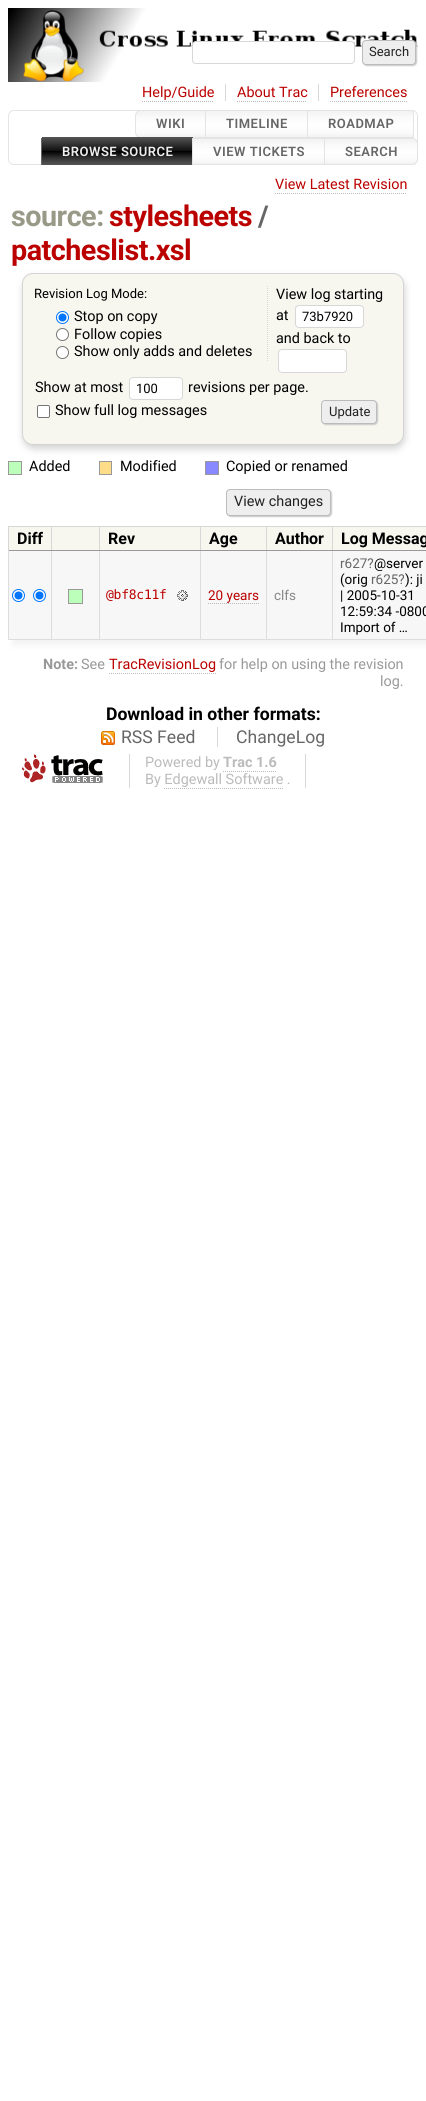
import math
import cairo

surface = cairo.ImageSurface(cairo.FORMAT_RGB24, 426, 2101)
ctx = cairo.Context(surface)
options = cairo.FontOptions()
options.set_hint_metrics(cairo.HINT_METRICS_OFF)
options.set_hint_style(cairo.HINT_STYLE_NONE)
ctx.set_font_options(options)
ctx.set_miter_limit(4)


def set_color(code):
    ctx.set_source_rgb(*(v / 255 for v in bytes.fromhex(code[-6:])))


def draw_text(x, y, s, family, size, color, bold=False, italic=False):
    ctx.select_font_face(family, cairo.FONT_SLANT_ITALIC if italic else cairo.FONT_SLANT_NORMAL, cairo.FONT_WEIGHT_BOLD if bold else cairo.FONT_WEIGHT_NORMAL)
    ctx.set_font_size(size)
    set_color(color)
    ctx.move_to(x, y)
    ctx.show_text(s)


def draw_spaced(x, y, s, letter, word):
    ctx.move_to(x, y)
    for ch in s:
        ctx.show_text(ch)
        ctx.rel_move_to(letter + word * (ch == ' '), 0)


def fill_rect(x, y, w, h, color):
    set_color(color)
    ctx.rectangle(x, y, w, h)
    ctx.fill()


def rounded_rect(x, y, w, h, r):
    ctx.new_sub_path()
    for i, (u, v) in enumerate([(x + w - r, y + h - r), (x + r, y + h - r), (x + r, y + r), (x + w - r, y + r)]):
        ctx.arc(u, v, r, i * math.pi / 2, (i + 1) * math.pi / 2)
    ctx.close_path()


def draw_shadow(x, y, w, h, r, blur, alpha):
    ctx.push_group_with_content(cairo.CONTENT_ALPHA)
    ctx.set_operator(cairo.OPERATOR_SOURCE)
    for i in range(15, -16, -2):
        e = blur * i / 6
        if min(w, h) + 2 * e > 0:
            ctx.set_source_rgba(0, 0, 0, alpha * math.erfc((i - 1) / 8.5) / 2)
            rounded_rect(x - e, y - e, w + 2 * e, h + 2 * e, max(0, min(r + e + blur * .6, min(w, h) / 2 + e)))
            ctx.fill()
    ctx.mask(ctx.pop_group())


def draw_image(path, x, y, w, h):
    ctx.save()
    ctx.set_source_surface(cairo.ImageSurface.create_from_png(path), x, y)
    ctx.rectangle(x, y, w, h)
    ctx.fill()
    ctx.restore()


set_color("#ffffff")
ctx.paint()
draw_image("assets/img1.png", 8, 8, 410, 74)
set_color("#ffffff")
rounded_rect(192.5, 41.5, 162, 22, 3.5)
ctx.fill_preserve()
set_color("#d7d7d7")
ctx.set_line_width(1)
ctx.stroke()
set_color("#cccccc")
draw_shadow(363, 41, 54, 25, 4, 0.5, 1)
set_color("#eeeeee")
rounded_rect(362.5, 40.5, 53, 24, 3.5)
ctx.fill_preserve()
set_color("#bbbbbb")
ctx.stroke()
draw_text(369, 56, "Search", "Roboto", 13, "#222222")
fill_rect(225, 84, 1, 17, "#d7d7d7")
draw_text(142, 97, "Help/Guide", "Roboto", 14.4, "#bb0000")
ctx.new_path()
ctx.move_to(142, 101.5)
ctx.line_to(214, 101.5)
set_color("#bbbbbb")
ctx.set_dash([1, 1])
ctx.stroke()
fill_rect(318, 84, 1, 17, "#d7d7d7")
draw_text(237, 97, "About Trac", "Roboto", 14.4, "#bb0000")
ctx.new_path()
ctx.move_to(237, 101.5)
ctx.line_to(307, 101.5)
set_color("#bbbbbb")
ctx.stroke()
draw_text(330, 97, "Preferences", "Roboto", 14.4, "#bb0000")
ctx.new_path()
ctx.move_to(330, 101.5)
ctx.line_to(407, 101.5)
set_color("#bbbbbb")
ctx.stroke()
rounded_rect(8.5, 110.5, 409, 54, 5.5)
set_color("#e4e4e4")
ctx.set_dash([])
ctx.stroke()
ctx.save()
ctx.new_path()
ctx.move_to(141, 110)
ctx.line_to(206, 110)
ctx.line_to(206, 138)
ctx.line_to(141, 138)
ctx.curve_to(137.5, 138, 135, 135.5, 135, 132)
ctx.line_to(135, 116)
ctx.curve_to(135, 112.5, 137.5, 110, 141, 110)
ctx.close_path()
ctx.clip()
gradient = cairo.LinearGradient(171, 111, 171, 137)
gradient.add_color_stop_rgba(0, 0.949, 0.949, 0.949, 1)
gradient.add_color_stop_rgba(0.25, 0.98, 0.98, 0.98, 1)
gradient.add_color_stop_rgba(0.49, 0.996, 0.996, 0.996, 1)
gradient.add_color_stop_rgba(0.51, 1, 1, 1, 1)
gradient.add_color_stop_rgba(0.85, 0.98, 0.98, 0.98, 1)
gradient.add_color_stop_rgba(1, 0.949, 0.949, 0.949, 1)
ctx.set_source(gradient)
ctx.rectangle(135, 111, 70, 26)
ctx.fill()
ctx.restore()
ctx.new_path()
ctx.move_to(141, 110.5)
ctx.line_to(205.5, 110.5)
ctx.line_to(205.5, 137.5)
ctx.line_to(141, 137.5)
ctx.curve_to(138, 137.5, 135.5, 135, 135.5, 132)
ctx.line_to(135.5, 116)
ctx.curve_to(135.5, 113, 138, 110.5, 141, 110.5)
ctx.close_path()
ctx.stroke()
ctx.select_font_face("Roboto SemiBold")
ctx.set_font_size(13)
set_color("#666666")
draw_spaced(156, 128, "WIKI", 0.5, 0)
gradient = cairo.LinearGradient(257, 111, 257, 137)
gradient.add_color_stop_rgba(0, 0.949, 0.949, 0.949, 1)
gradient.add_color_stop_rgba(0.25, 0.98, 0.98, 0.98, 1)
gradient.add_color_stop_rgba(0.49, 0.996, 0.996, 0.996, 1)
gradient.add_color_stop_rgba(0.51, 1, 1, 1, 1)
gradient.add_color_stop_rgba(0.85, 0.98, 0.98, 0.98, 1)
gradient.add_color_stop_rgba(1, 0.949, 0.949, 0.949, 1)
ctx.set_source(gradient)
ctx.rectangle(206, 111, 101, 26)
ctx.fill()
ctx.rectangle(205.5, 110.5, 102, 27)
set_color("#e4e4e4")
ctx.stroke()
set_color("#666666")
draw_spaced(226, 128, "TIMELINE", 0.5, 0)
gradient = cairo.LinearGradient(361, 111, 361, 137)
gradient.add_color_stop_rgba(0, 0.949, 0.949, 0.949, 1)
gradient.add_color_stop_rgba(0.25, 0.98, 0.98, 0.98, 1)
gradient.add_color_stop_rgba(0.49, 0.996, 0.996, 0.996, 1)
gradient.add_color_stop_rgba(0.51, 1, 1, 1, 1)
gradient.add_color_stop_rgba(0.85, 0.98, 0.98, 0.98, 1)
gradient.add_color_stop_rgba(1, 0.949, 0.949, 0.949, 1)
ctx.set_source(gradient)
ctx.rectangle(308, 111, 105, 26)
ctx.fill()
ctx.rectangle(307.5, 110.5, 106, 27)
set_color("#e4e4e4")
ctx.stroke()
set_color("#666666")
draw_spaced(328, 128, "ROADMAP", 0.5, 0)
ctx.rectangle(41.5, 138.5, 152, 26)
ctx.stroke()
gradient = cairo.LinearGradient(118, 137, 118, 165)
gradient.add_color_stop_rgba(0, 0.333, 0.333, 0.333, 1)
gradient.add_color_stop_rgba(0.25, 0.2, 0.2, 0.2, 1)
gradient.add_color_stop_rgba(0.49, 0.067, 0.067, 0.067, 1)
gradient.add_color_stop_rgba(0.51, 0, 0, 0, 1)
gradient.add_color_stop_rgba(0.75, 0.2, 0.2, 0.2, 1)
gradient.add_color_stop_rgba(1, 0.333, 0.333, 0.333, 1)
ctx.set_source(gradient)
ctx.rectangle(42, 137, 151, 28)
ctx.fill()
set_color("#eeeeee")
draw_spaced(62, 156, "BROWSE SOURCE", 0.5, 0)
gradient = cairo.LinearGradient(259, 139, 259, 164)
gradient.add_color_stop_rgba(0, 0.949, 0.949, 0.949, 1)
gradient.add_color_stop_rgba(0.25, 0.98, 0.98, 0.98, 1)
gradient.add_color_stop_rgba(0.49, 0.996, 0.996, 0.996, 1)
gradient.add_color_stop_rgba(0.51, 1, 1, 1, 1)
gradient.add_color_stop_rgba(0.85, 0.98, 0.98, 0.98, 1)
gradient.add_color_stop_rgba(1, 0.949, 0.949, 0.949, 1)
ctx.set_source(gradient)
ctx.rectangle(193, 139, 131, 25)
ctx.fill()
ctx.rectangle(192.5, 138.5, 132, 26)
set_color("#e4e4e4")
ctx.stroke()
set_color("#666666")
draw_spaced(213, 156, "VIEW TICKETS", 0.5, 0)
ctx.save()
ctx.new_path()
ctx.move_to(324, 138)
ctx.line_to(412, 138)
ctx.curve_to(415.5, 138, 418, 140.5, 418, 144)
ctx.line_to(418, 159)
ctx.curve_to(418, 162.5, 415.5, 165, 412, 165)
ctx.line_to(324, 165)
ctx.close_path()
ctx.clip()
gradient = cairo.LinearGradient(371, 139, 371, 164)
gradient.add_color_stop_rgba(0, 0.949, 0.949, 0.949, 1)
gradient.add_color_stop_rgba(0.25, 0.98, 0.98, 0.98, 1)
gradient.add_color_stop_rgba(0.49, 0.996, 0.996, 0.996, 1)
gradient.add_color_stop_rgba(0.51, 1, 1, 1, 1)
gradient.add_color_stop_rgba(0.85, 0.98, 0.98, 0.98, 1)
gradient.add_color_stop_rgba(1, 0.949, 0.949, 0.949, 1)
ctx.set_source(gradient)
ctx.rectangle(325, 139, 93, 25)
ctx.fill()
ctx.restore()
ctx.new_path()
ctx.move_to(324.5, 138.5)
ctx.line_to(412, 138.5)
ctx.curve_to(415, 138.5, 417.5, 141, 417.5, 144)
ctx.line_to(417.5, 159)
ctx.curve_to(417.5, 162, 415, 164.5, 412, 164.5)
ctx.line_to(324.5, 164.5)
ctx.close_path()
set_color("#e4e4e4")
ctx.stroke()
set_color("#666666")
draw_spaced(345, 156, "SEARCH", 0.5, 0)
draw_text(275, 189, "View Latest Revision", "Roboto", 14.4, "#bb0000")
ctx.new_path()
ctx.move_to(275, 193.5)
ctx.line_to(407, 193.5)
set_color("#bbbbbb")
ctx.set_dash([1, 1])
ctx.stroke()
ctx.select_font_face("Roboto", cairo.FONT_SLANT_NORMAL, cairo.FONT_WEIGHT_BOLD)
ctx.set_font_size(28.75)
set_color("#999988")
draw_spaced(11, 226, "source:", -0.5, 0)
set_color("#bb0000")
draw_spaced(109, 226, "stylesheets", -0.5, 0)
set_color("#666666")
draw_spaced(258, 226, "/", -0.5, 0)
set_color("#bb0000")
draw_spaced(11, 260, "patcheslist.xsl", -0.5, 0)
set_color("#d4d4d4")
draw_shadow(23, 277, 382, 172, 11, 3.5, 1)
set_color("#f7f7f0")
rounded_rect(22.5, 273.5, 381, 171, 10.5)
ctx.fill_preserve()
set_color("#d4d4d4")
ctx.set_dash([])
ctx.stroke()
ctx.new_path()
ctx.move_to(267.5, 286)
ctx.line_to(267.5, 361)
set_color("#d7d7d7")
ctx.set_dash([1, 1])
ctx.stroke()
draw_text(34, 298, "Revision Log Mode:", "Roboto", 13, "#000000")
set_color("#ffffff")
ctx.new_path()
ctx.arc(62.5, 317.5, 6, 0, 2 * math.pi)
ctx.fill_preserve()
set_color("#0075ff")
ctx.set_dash([])
ctx.stroke()
ctx.arc(62.5, 317.5, 4, 0, 2 * math.pi)
ctx.fill()
draw_text(74, 321, "Stop on copy", "Roboto", 14.4, "#000000")
set_color("#ffffff")
ctx.new_path()
ctx.arc(62.5, 334.5, 6, 0, 2 * math.pi)
ctx.fill_preserve()
set_color("#767676")
ctx.stroke()
draw_text(74, 339, "Follow copies", "Roboto", 14.4, "#000000")
set_color("#ffffff")
ctx.new_path()
ctx.arc(62.5, 352.5, 6, 0, 2 * math.pi)
ctx.fill_preserve()
set_color("#767676")
ctx.stroke()
draw_text(74, 356, "Show only adds and deletes", "Roboto", 14.4, "#000000")
draw_text(276, 299, "View log starting", "Roboto", 14.4, "#000000")
draw_text(276, 320, "at", "Roboto", 14.4, "#000000")
set_color("#ffffff")
rounded_rect(295.5, 305.5, 68, 22, 3.5)
ctx.fill_preserve()
set_color("#d7d7d7")
ctx.stroke()
draw_text(302, 321, "73b7920", "Roboto", 13, "#000000")
draw_text(276, 343, "and back to", "Roboto", 14.4, "#000000")
set_color("#ffffff")
rounded_rect(278.5, 349.5, 68, 23, 3.5)
ctx.fill_preserve()
set_color("#d7d7d7")
ctx.stroke()
draw_text(35, 392, "Show at most", "Roboto", 14.4, "#000000")
set_color("#ffffff")
rounded_rect(129.5, 377.5, 53, 22, 3.5)
ctx.fill_preserve()
set_color("#d7d7d7")
ctx.stroke()
draw_text(136, 393, "100", "Roboto", 13, "#000000")
draw_text(188, 392, "revisions per page.", "Roboto", 14.4, "#000000")
set_color("#ffffff")
rounded_rect(37.5, 405.5, 12, 12, 1.5)
ctx.fill_preserve()
set_color("#767676")
ctx.stroke()
draw_text(55, 415, "Show full log messages", "Roboto", 14.4, "#000000")
set_color("#cccccc")
draw_shadow(322, 401, 56, 24, 4, 0.5, 1)
set_color("#eeeeee")
rounded_rect(321.5, 400.5, 55, 23, 3.5)
ctx.fill_preserve()
set_color("#bbbbbb")
ctx.stroke()
draw_text(329, 416, "Update", "Roboto", 13, "#222222")
set_color("#bbffbb")
ctx.rectangle(8.5, 461.5, 13, 13)
ctx.fill_preserve()
set_color("#999999")
ctx.stroke()
draw_text(29, 471, "Added", "Roboto", 14.4, "#000000")
set_color("#ffdd88")
ctx.rectangle(99.5, 461.5, 12, 13)
ctx.fill_preserve()
set_color("#999999")
ctx.stroke()
draw_text(120, 471, "Modified", "Roboto", 14.4, "#000000")
set_color("#8888ff")
ctx.rectangle(205.5, 461.5, 13, 13)
ctx.fill_preserve()
set_color("#999999")
ctx.stroke()
draw_text(226, 471, "Copied or renamed", "Roboto", 14.4, "#000000")
set_color("#cccccc")
draw_shadow(227, 490, 105, 27, 4, 0.5, 1)
set_color("#eeeeee")
rounded_rect(226.5, 489.5, 104, 26, 3.5)
ctx.fill_preserve()
set_color("#bbbbbb")
ctx.stroke()
draw_text(234, 506, "View changes", "Roboto", 14.4, "#222222")
set_color("#f2f2f2")
draw_shadow(13, 531, 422, 114, 0, 3, 1)
fill_rect(9, 527, 417, 23, "#f7f7f0")
fill_rect(332, 526, 94, 1, "#d7d7d7")
fill_rect(9, 551, 417, 88, "#f7f7f7")
fill_rect(332, 639, 94, 1, "#dddddd")
fill_rect(332, 550, 1, 90, "#dddddd")
fill_rect(332, 550, 94, 1, "#999999")
fill_rect(332, 526, 1, 25, "#d7d7d7")
fill_rect(266, 526, 67, 1, "#d7d7d7")
fill_rect(266, 639, 67, 1, "#dddddd")
fill_rect(266, 550, 1, 90, "#dddddd")
fill_rect(266, 550, 67, 1, "#999999")
fill_rect(266, 526, 1, 25, "#d7d7d7")
fill_rect(200, 526, 67, 1, "#d7d7d7")
fill_rect(200, 639, 67, 1, "#dddddd")
fill_rect(200, 550, 1, 90, "#dddddd")
fill_rect(200, 550, 67, 1, "#999999")
fill_rect(200, 526, 1, 25, "#d7d7d7")
fill_rect(99, 526, 102, 1, "#d7d7d7")
fill_rect(99, 639, 102, 1, "#dddddd")
fill_rect(99, 550, 1, 90, "#dddddd")
fill_rect(99, 550, 102, 1, "#999999")
fill_rect(99, 526, 1, 25, "#d7d7d7")
fill_rect(51, 526, 49, 1, "#d7d7d7")
fill_rect(51, 639, 49, 1, "#dddddd")
fill_rect(51, 550, 1, 90, "#dddddd")
fill_rect(51, 550, 49, 1, "#999999")
fill_rect(51, 526, 1, 25, "#d7d7d7")
fill_rect(8, 526, 44, 1, "#d7d7d7")
fill_rect(8, 639, 44, 1, "#dddddd")
fill_rect(8, 550, 1, 90, "#dddddd")
fill_rect(8, 550, 44, 1, "#999999")
fill_rect(8, 526, 1, 25, "#d7d7d7")
draw_text(17, 544, "Diff", "Roboto", 16, "#000000", bold=True)
draw_text(108, 544, "Rev", "Roboto", 16, "#000000", bold=True)
draw_text(209, 544, "Age", "Roboto", 16, "#000000", bold=True)
draw_text(275, 544, "Author", "Roboto", 16, "#000000", bold=True)
draw_text(341, 544, "Log Messag", "Roboto", 16, "#000000", bold=True)
set_color("#ffffff")
ctx.new_path()
ctx.arc(18.5, 595.5, 6, 0, 2 * math.pi)
ctx.fill_preserve()
set_color("#0075ff")
ctx.stroke()
ctx.arc(18.5, 595.5, 4, 0, 2 * math.pi)
ctx.fill()
set_color("#ffffff")
ctx.arc(39.5, 595.5, 6, 0, 2 * math.pi)
ctx.fill_preserve()
set_color("#0075ff")
ctx.stroke()
ctx.arc(39.5, 595.5, 4, 0, 2 * math.pi)
ctx.fill()
set_color("#bbffbb")
ctx.rectangle(68.5, 589.5, 14, 14)
ctx.fill_preserve()
set_color("#999999")
ctx.stroke()
ctx.select_font_face("DejaVu Sans Mono")
ctx.set_font_size(13)
set_color("#bb0000")
draw_spaced(106, 599, "@bf8c11f", -0.25, 0)
draw_image("assets/img2.png", 177, 590, 11, 11)
draw_text(208, 600, "20 years", "Roboto", 13.5, "#bb0000")
ctx.new_path()
ctx.move_to(208, 603.5)
ctx.line_to(259, 603.5)
set_color("#bbbbbb")
ctx.set_dash([1, 1])
ctx.stroke()
draw_text(274, 600, "clfs", "Roboto", 13.5, "#888888")
draw_text(340, 568, "r627?", "Roboto", 13.5, "#666666")
draw_text(374, 568, "@server", "Roboto", 13.5, "#000000")
draw_text(340, 584, "(orig", "Roboto", 13.5, "#000000")
draw_text(371, 584, "r625?", "Roboto", 13.5, "#666666")
draw_text(405, 584, "): ji", "Roboto", 13.5, "#000000")
draw_text(340, 600, "| 2005-10-31", "Roboto", 13.5, "#000000")
draw_text(340, 616, "12:59:34 -0800", "Roboto", 13.5, "#000000")
draw_text(340, 632, "Import of …", "Roboto", 13.5, "#000000")
draw_text(43, 669, "Note:", "Roboto", 14.4, "#999999", bold=True)
draw_text(81, 669, "See", "Roboto", 14.4, "#999999")
draw_text(109, 669, "TracRevisionLog", "Roboto", 14.4, "#bb0000")
ctx.new_path()
ctx.move_to(109, 673.5)
ctx.line_to(216, 673.5)
set_color("#bbbbbb")
ctx.stroke()
draw_text(219, 669, "for help on using the revision", "Roboto", 14.4, "#999999")
draw_text(380, 686, "log.", "Roboto", 14.4, "#999999")
draw_text(106, 720, "Download in other formats:", "Roboto", 17.6, "#000000", bold=True)
draw_image("assets/img3.png", 101, 731, 14, 14)
draw_text(121, 743, "RSS Feed", "Roboto", 17.6, "#666666")
fill_rect(217, 727, 1, 20, "#d7d7d7")
draw_text(236, 743, "ChangeLog", "Roboto", 17.6, "#666666")
draw_image("assets/img4.png", 22, 754, 81, 29)
fill_rect(305, 754, 1, 34, "#d7d7d7")
fill_rect(129, 754, 1, 34, "#d7d7d7")
draw_text(145, 767, "Powered by", "Roboto", 14.4, "#bbbbbb")
draw_text(223, 767, "Trac 1.6", "Roboto", 14.4, "#bbbbbb", bold=True)
ctx.new_path()
ctx.move_to(223, 771.5)
ctx.line_to(277, 771.5)
ctx.stroke()
draw_text(145, 784, "By Edgewall Software .", "Roboto", 14.4, "#bbbbbb")
ctx.new_path()
ctx.move_to(164, 788.5)
ctx.line_to(283, 788.5)
ctx.stroke()
surface.write_to_png("output.png")
